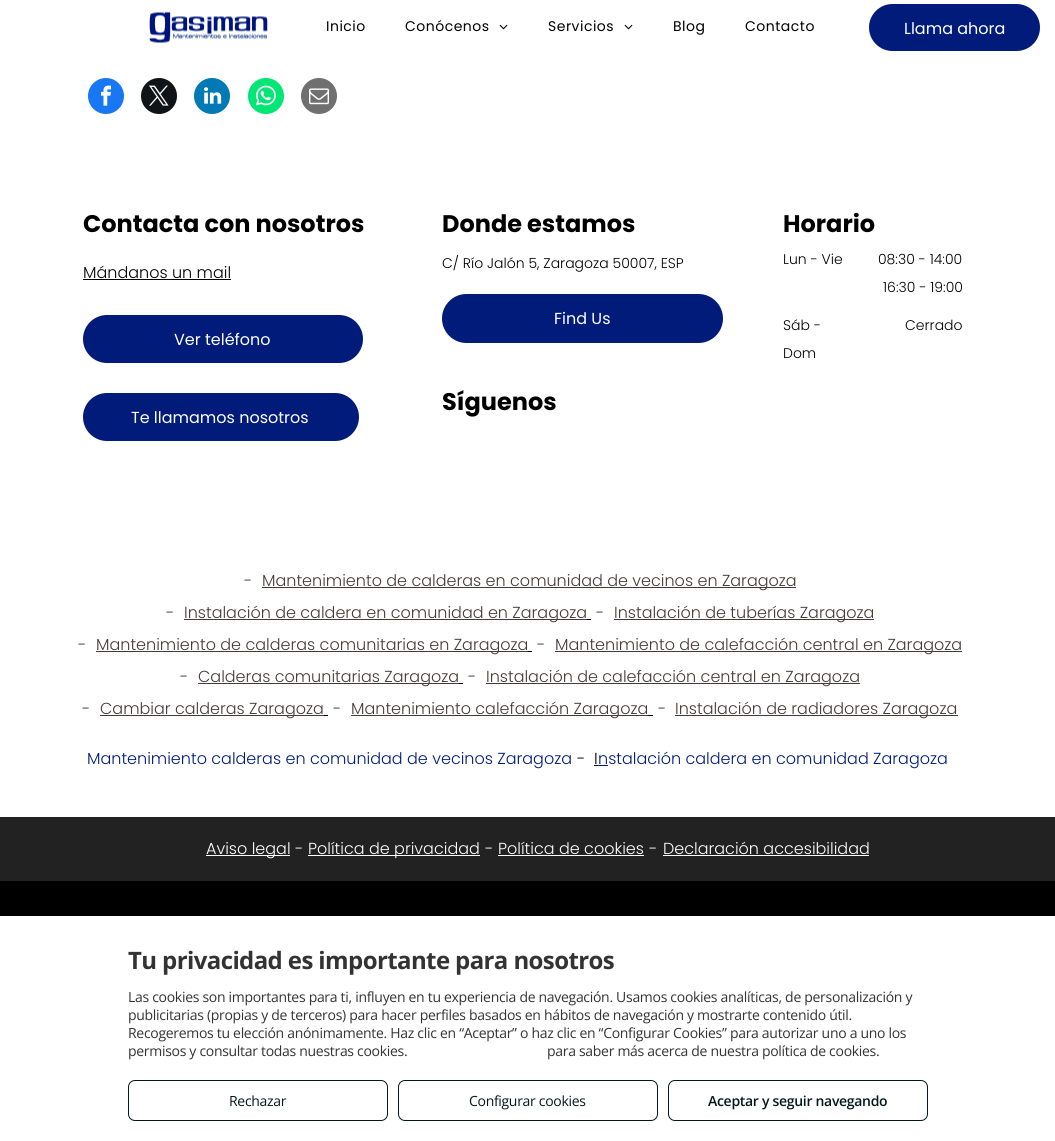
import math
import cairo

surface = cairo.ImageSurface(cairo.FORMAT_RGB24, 1055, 1141)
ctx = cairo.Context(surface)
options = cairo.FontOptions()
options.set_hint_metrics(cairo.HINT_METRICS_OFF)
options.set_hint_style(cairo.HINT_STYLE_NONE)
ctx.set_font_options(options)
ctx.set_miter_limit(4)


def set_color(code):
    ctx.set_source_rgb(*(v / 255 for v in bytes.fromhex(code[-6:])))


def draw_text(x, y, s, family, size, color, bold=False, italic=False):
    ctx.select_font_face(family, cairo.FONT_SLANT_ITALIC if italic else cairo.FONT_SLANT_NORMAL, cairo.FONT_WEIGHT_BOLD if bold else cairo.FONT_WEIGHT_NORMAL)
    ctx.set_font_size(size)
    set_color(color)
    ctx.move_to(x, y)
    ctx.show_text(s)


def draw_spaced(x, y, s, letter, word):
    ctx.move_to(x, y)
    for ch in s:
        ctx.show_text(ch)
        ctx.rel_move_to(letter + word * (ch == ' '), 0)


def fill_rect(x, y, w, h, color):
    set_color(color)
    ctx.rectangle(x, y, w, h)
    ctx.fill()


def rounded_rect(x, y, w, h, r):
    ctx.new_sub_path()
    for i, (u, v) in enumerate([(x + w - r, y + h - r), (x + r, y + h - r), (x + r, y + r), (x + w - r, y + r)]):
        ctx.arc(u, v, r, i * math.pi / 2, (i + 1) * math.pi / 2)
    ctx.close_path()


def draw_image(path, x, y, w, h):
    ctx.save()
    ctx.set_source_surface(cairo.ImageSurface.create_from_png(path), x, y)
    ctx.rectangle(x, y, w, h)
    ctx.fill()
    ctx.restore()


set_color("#ffffff")
ctx.paint()
draw_image("assets/img1.png", 149, 11, 119, 33)
ctx.select_font_face("Poppins")
ctx.set_font_size(14)
set_color("#000000")
draw_spaced(326, 31, "Inicio", 0.5, 0)
draw_spaced(405, 31, "Conócenos", 0.5, 0)
draw_image("assets/img2.png", 499, 24, 9, 6)
draw_spaced(548, 31, "Servicios", 0.5, 0)
draw_image("assets/img2.png", 624, 24, 9, 6)
draw_spaced(673, 31, "Blog", 0.5, 0)
draw_spaced(745, 31, "Contacto", 0.5, 0)
set_color("#011b7a")
rounded_rect(869, 4, 171, 47, 23.5)
ctx.fill()
draw_text(904, 34, "Llama ahora", "Poppins", 16, "#ffffff")
set_color("#1877f2")
ctx.new_path()
ctx.arc(106, 96, 18, 0, 2 * math.pi)
ctx.fill()
draw_image("assets/img3.png", 101, 85, 10, 21)
set_color("#0f1419")
ctx.arc(159, 96, 18, 0, 2 * math.pi)
ctx.fill()
draw_image("assets/img4.png", 149, 85, 20, 21)
set_color("#0079b4")
ctx.arc(212, 96, 18, 0, 2 * math.pi)
ctx.fill()
draw_image("assets/img5.png", 204, 87, 18, 17)
set_color("#01e675")
ctx.arc(266, 96, 18, 0, 2 * math.pi)
ctx.fill()
draw_image("assets/img6.png", 256, 85, 20, 21)
set_color("#707070")
ctx.arc(319, 96, 18, 0, 2 * math.pi)
ctx.fill()
draw_image("assets/img7.png", 309, 88, 20, 17)
draw_text(83, 232, "Contacta con nosotros", "Poppins", 24, "#000000", bold=True)
draw_text(83, 278, "Mándanos un mail", "Poppins Light", 16, "#000000")
fill_rect(83, 279, 148, 1, "#000000")
set_color("#011b7a")
rounded_rect(83, 315, 280, 48, 24)
ctx.fill()
draw_text(174, 345, "Ver teléfono", "Poppins", 16, "#ffffff")
set_color("#011b7a")
rounded_rect(83, 393, 276, 48, 24)
ctx.fill()
draw_text(131, 423, "Te llamamos nosotros", "Poppins", 16, "#ffffff")
draw_text(442, 232, "Donde estamos", "Poppins", 24, "#000000", bold=True)
draw_text(442, 268, "C/ Río Jalón 5, Zaragoza 50007, ESP", "Poppins Light", 14, "#000000")
set_color("#011b7a")
rounded_rect(442, 294, 281, 49, 24.5)
ctx.fill()
draw_text(554, 324, "Find Us", "Poppins", 16, "#ffffff")
draw_text(442, 410, "Síguenos", "Poppins", 24, "#000000", bold=True)
draw_text(783, 232, "Horario", "Poppins", 24, "#000000", bold=True)
draw_text(783, 264, "Lun - Vie", "Poppins Light", 14, "#000000")
draw_text(878, 264, "08:30 - 14:00", "Poppins Light", 14, "#000000")
draw_text(883, 292, "16:30 - 19:00", "Poppins Light", 14, "#000000")
draw_text(783, 330, "Sáb -", "Poppins Light", 14, "#000000")
draw_text(783, 358, "Dom", "Poppins Light", 14, "#000000")
draw_text(905, 330, "Cerrado", "Poppins Light", 14, "#000000")
draw_text(244, 586, "-", "Poppins Light", 16, "#463939")
fill_rect(262, 587, 534, 1, "#463939")
draw_text(262, 586, "Mantenimiento de calderas en comunidad de vecinos en Zaragoza", "Poppins Light", 16, "#463939")
draw_text(166, 618, "-", "Poppins Light", 16, "#463939")
fill_rect(184, 619, 403, 1, "#463939")
draw_text(184, 618, "Instalación de caldera en comunidad en Zaragoza", "Poppins Light", 16, "#463939")
fill_rect(587, 619, 4, 1, "#000000")
draw_text(596, 618, "-", "Poppins Light", 16, "#463939")
fill_rect(614, 619, 260, 1, "#463939")
draw_text(614, 618, "Instalación de tuberías Zaragoza", "Poppins Light", 16, "#463939")
draw_text(78, 650, "-", "Poppins Light", 16, "#463939")
fill_rect(96, 651, 432, 1, "#463939")
draw_text(96, 650, "Mantenimiento de calderas comunitarias en Zaragoza", "Poppins Light", 16, "#463939")
fill_rect(528, 651, 4, 1, "#000000")
draw_text(537, 650, "-", "Poppins Light", 16, "#463939")
fill_rect(555, 651, 407, 1, "#463939")
draw_text(555, 650, "Mantenimiento de calefacción central en Zaragoza", "Poppins Light", 16, "#463939")
draw_text(180, 682, "-", "Poppins Light", 16, "#463939")
fill_rect(198, 683, 261, 1, "#463939")
draw_text(198, 682, "Calderas comunitarias Zaragoza", "Poppins Light", 16, "#463939")
fill_rect(459, 683, 4, 1, "#000000")
draw_text(468, 682, "-", "Poppins Light", 16, "#463939")
fill_rect(486, 683, 374, 1, "#463939")
draw_text(486, 682, "Instalación de calefacción central en Zaragoza", "Poppins Light", 16, "#463939")
draw_text(82, 714, "-", "Poppins Light", 16, "#463939")
fill_rect(100, 715, 224, 1, "#463939")
draw_text(100, 714, "Cambiar calderas Zaragoza", "Poppins Light", 16, "#463939")
fill_rect(324, 715, 4, 1, "#000000")
draw_text(333, 714, "-", "Poppins Light", 16, "#463939")
fill_rect(351, 715, 297, 1, "#463939")
draw_text(351, 714, "Mantenimiento calefacción Zaragoza", "Poppins Light", 16, "#463939")
fill_rect(648, 715, 5, 1, "#000000")
draw_text(658, 714, "-", "Poppins Light", 16, "#463939")
fill_rect(675, 715, 283, 1, "#463939")
draw_text(675, 714, "Instalación de radiadores Zaragoza", "Poppins Light", 16, "#463939")
draw_text(87, 764, "Mantenimiento calderas en comunidad de vecinos Zaragoza", "Poppins Light", 16, "#011b7a")
draw_text(577, 764, "-", "Poppins Light", 16, "#000000")
draw_text(594, 764, "I", "Poppins Light", 16, "#000000")
fill_rect(594, 765, 4, 1, "#000000")
fill_rect(598, 765, 10, 1, "#011b7a")
draw_text(598, 764, "nstalación caldera en comunidad Zaragoza", "Poppins Light", 16, "#011b7a")
fill_rect(0, 817, 1055, 64, "#222222")
fill_rect(206, 855, 84, 1, "#ffffff")
draw_text(206, 854, "Aviso legal", "Poppins Light", 16, "#ffffff")
draw_text(295, 854, "-", "Poppins Light", 16, "#ffffff")
fill_rect(308, 855, 172, 1, "#ffffff")
draw_text(308, 854, "Política de privacidad", "Poppins Light", 16, "#ffffff")
draw_text(485, 854, "-", "Poppins Light", 16, "#ffffff")
draw_text(498, 854, "Política de cookies", "Poppins Light", 16, "#ffffff")
fill_rect(498, 855, 146, 1, "#ffffff")
draw_text(649, 854, "-", "Poppins Light", 16, "#ffffff")
draw_text(663, 854, "Declaración accesibilidad", "Poppins Light", 16, "#ffffff")
fill_rect(663, 855, 206, 1, "#ffffff")
fill_rect(0, 881, 1055, 35, "#000000")
ctx.select_font_face("Open Sans", cairo.FONT_SLANT_NORMAL, cairo.FONT_WEIGHT_BOLD)
ctx.set_font_size(24)
set_color("#333333")
draw_spaced(128, 969, "Tu privacidad es importante para nosotros", -0.6, 0)
ctx.select_font_face("Open Sans")
ctx.set_font_size(14)
draw_spaced(128, 1002, "Las cookies son importantes para ti, influyen en tu experiencia de navegación. Usamos cookies analíticas, de personalización y", -0.3, 0)
draw_spaced(128, 1020, "publicitarias (propias y de terceros) para hacer perfiles basados en hábitos de navegación y mostrarte contenido útil.", -0.3, 0)
draw_spaced(128, 1038, "Recogeremos tu elección anónimamente. Haz clic en “Aceptar” o haz clic en “Configurar Cookies” para autorizar uno a uno los", -0.3, 0)
draw_spaced(128, 1056, "permisos y consultar todas nuestras cookies.", -0.3, 0)
draw_spaced(547, 1056, "para saber más acerca de nuestra política de cookies.", -0.3, 0)
rounded_rect(128.5, 1080.5, 259, 40, 6.5)
set_color("#03181e")
ctx.set_line_width(1)
ctx.stroke()
draw_spaced(229, 1106, "Rechazar", -0.3, 0)
rounded_rect(398.5, 1080.5, 259, 40, 6.5)
ctx.stroke()
draw_spaced(469, 1106, "Configurar cookies", -0.3, 0)
rounded_rect(668.5, 1080.5, 259, 40, 6.5)
ctx.stroke()
ctx.select_font_face("Open Sans SemiBold")
draw_spaced(708, 1106, "Aceptar y seguir navegando", -0.3, 0)
surface.write_to_png("output.png")
